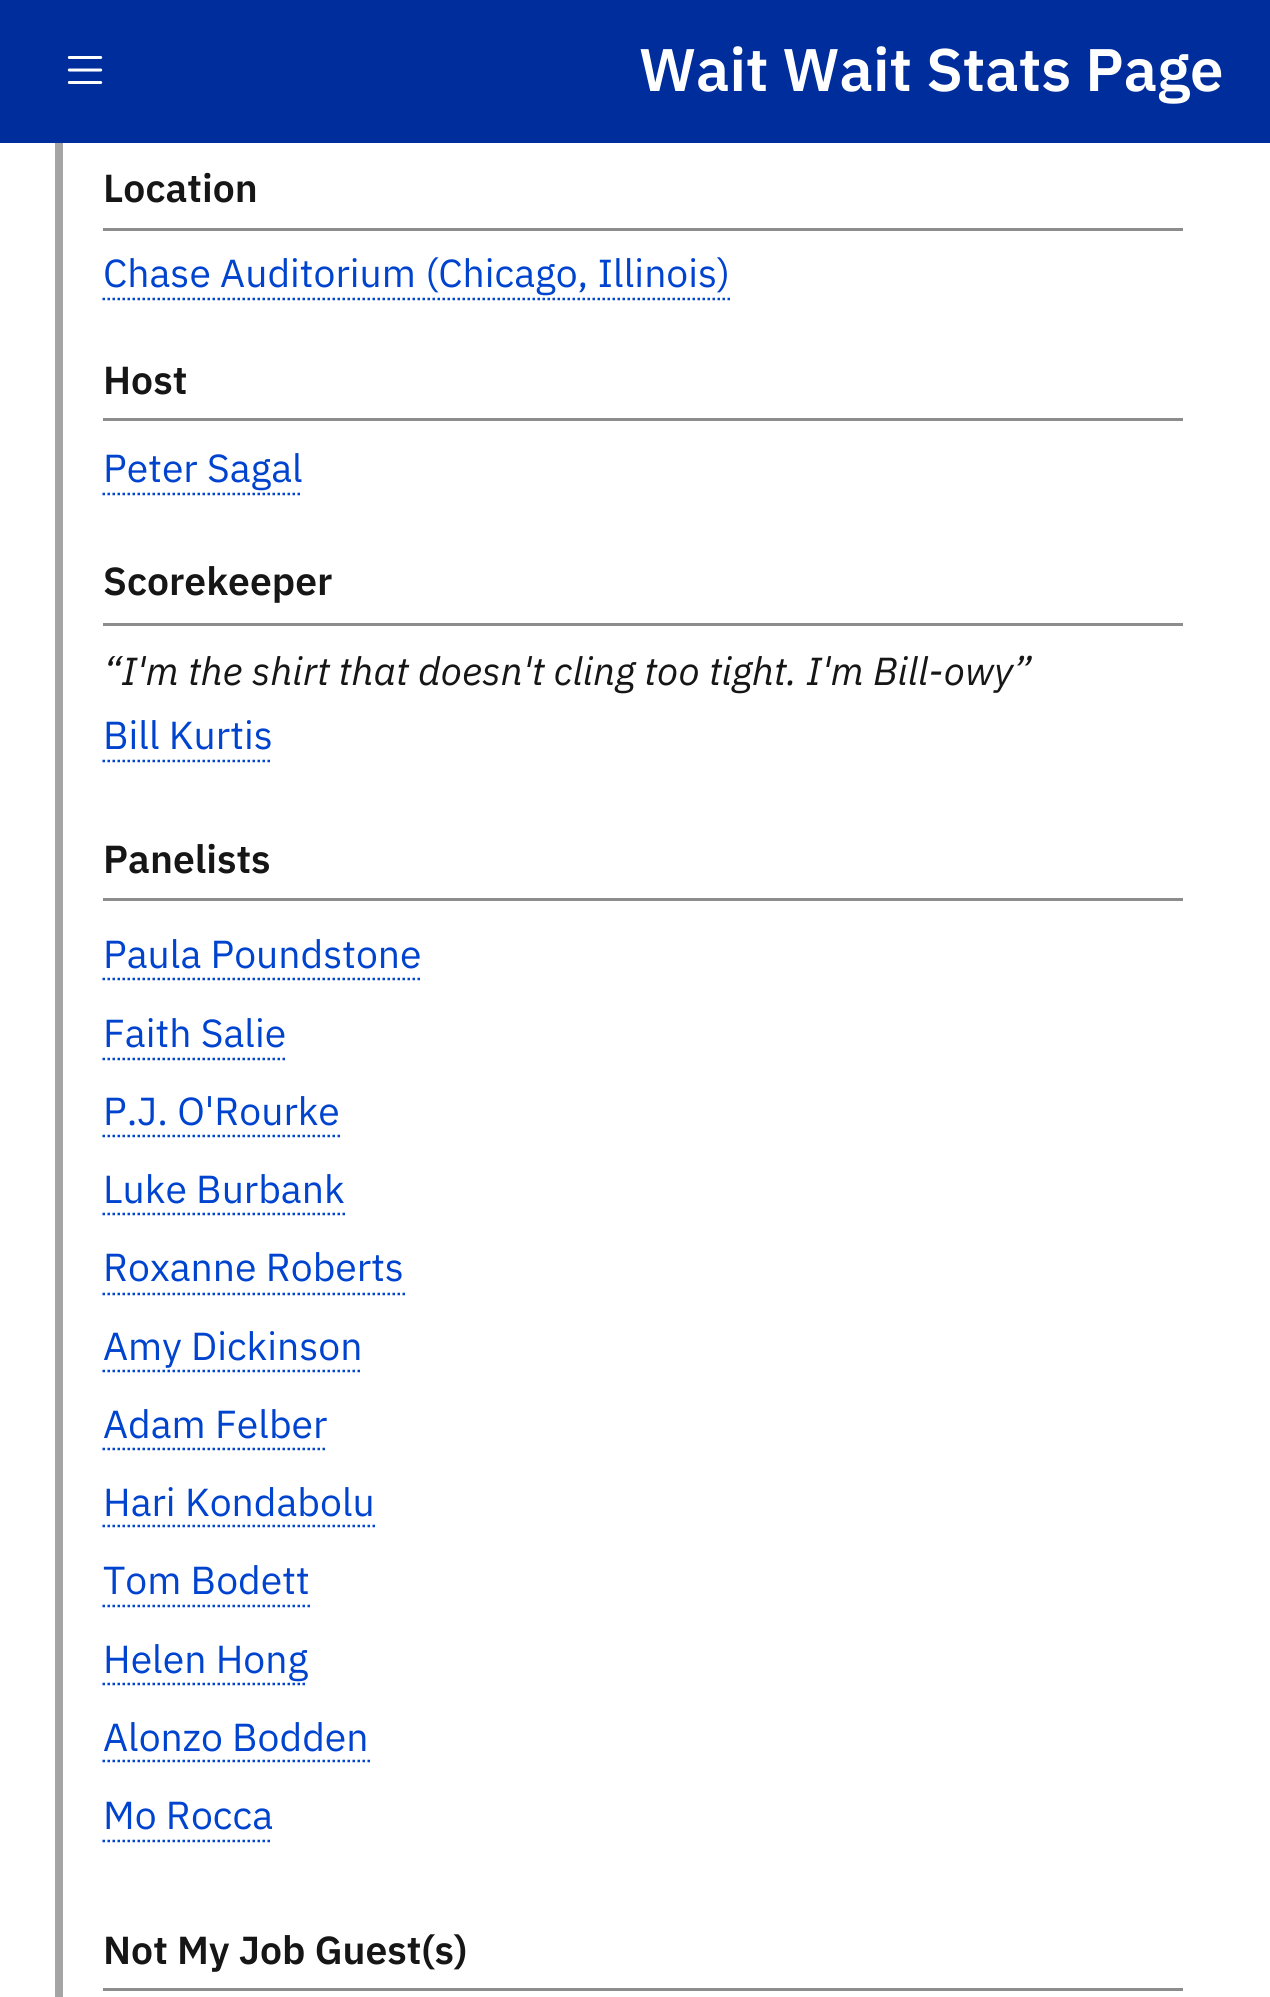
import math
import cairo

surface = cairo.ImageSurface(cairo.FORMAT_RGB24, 1270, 1997)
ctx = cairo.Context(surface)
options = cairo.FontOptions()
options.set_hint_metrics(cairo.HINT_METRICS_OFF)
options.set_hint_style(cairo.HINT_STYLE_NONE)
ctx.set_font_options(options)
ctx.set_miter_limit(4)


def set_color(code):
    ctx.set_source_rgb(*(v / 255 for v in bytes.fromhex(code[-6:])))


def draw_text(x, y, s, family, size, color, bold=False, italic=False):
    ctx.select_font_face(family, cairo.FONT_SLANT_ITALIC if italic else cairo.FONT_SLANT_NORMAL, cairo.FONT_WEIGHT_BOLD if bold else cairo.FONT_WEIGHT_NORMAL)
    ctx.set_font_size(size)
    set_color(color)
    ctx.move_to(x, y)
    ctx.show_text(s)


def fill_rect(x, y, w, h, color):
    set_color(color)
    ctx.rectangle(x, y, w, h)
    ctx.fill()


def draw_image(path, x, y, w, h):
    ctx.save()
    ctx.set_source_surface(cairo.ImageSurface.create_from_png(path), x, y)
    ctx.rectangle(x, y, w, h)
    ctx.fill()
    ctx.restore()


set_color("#ffffff")
ctx.paint()
fill_rect(0, 0, 1270, 143, "#002d9c")
draw_image("assets/img1.png", 67, 56, 36, 28)
draw_text(639, 91, "Wait Wait Stats Page", "IBM Plex Sans SemiBold", 60, "#ffffff")
fill_rect(55, 143, 8, 1854, "#a4a4a4")
fill_rect(103, 228, 1080, 3, "#8d8d8d")
draw_text(103, 202, "Location", "IBM Plex Sans SemiBold", 39.1, "#161616")
draw_text(103, 287, "Chase Auditorium (Chicago, Illinois)", "IBM Plex Sans", 39.1, "#0043ce")
ctx.new_path()
ctx.move_to(102.5, 299)
ctx.line_to(730, 299)
ctx.set_line_width(2.5)
ctx.set_dash([2.5, 2.5])
ctx.stroke()
fill_rect(103, 418, 1080, 3, "#8d8d8d")
draw_text(103, 394, "Host", "IBM Plex Sans SemiBold", 39.1, "#161616")
draw_text(103, 482, "Peter Sagal", "IBM Plex Sans", 39.1, "#0043ce")
ctx.new_path()
ctx.move_to(102.5, 494)
ctx.line_to(302.5, 494)
ctx.stroke()
fill_rect(103, 623, 1080, 3, "#8d8d8d")
draw_text(103, 595, "Scorekeeper", "IBM Plex Sans SemiBold", 39.1, "#161616")
draw_text(103, 685, "“I'm the shirt that doesn't cling too tight. I'm Bill-owy", "IBM Plex Sans", 39.1, "#161616", italic=True)
draw_text(1013, 685, "”", "IBM Plex Sans", 39.1, "#161616", italic=True)
draw_text(103, 749, "Bill Kurtis", "IBM Plex Sans", 39.1, "#0043ce")
ctx.new_path()
ctx.move_to(102.5, 761)
ctx.line_to(272.5, 761)
ctx.stroke()
fill_rect(103, 898, 1080, 3, "#8d8d8d")
draw_text(103, 873, "Panelists", "IBM Plex Sans SemiBold", 39.1, "#161616")
draw_text(103, 968, "Paula Poundstone", "IBM Plex Sans", 39.1, "#0043ce")
ctx.new_path()
ctx.move_to(102.5, 979)
ctx.line_to(422.5, 979)
ctx.stroke()
draw_text(103, 1047, "Faith Salie", "IBM Plex Sans", 39.1, "#0043ce")
ctx.new_path()
ctx.move_to(102.5, 1059)
ctx.line_to(287.5, 1059)
ctx.stroke()
draw_text(103, 1125, "P.J. O'Rourke", "IBM Plex Sans", 39.1, "#0043ce")
ctx.new_path()
ctx.move_to(102.5, 1136)
ctx.line_to(340, 1136)
ctx.stroke()
draw_text(103, 1203, "Luke Burbank", "IBM Plex Sans", 39.1, "#0043ce")
ctx.new_path()
ctx.move_to(102.5, 1214)
ctx.line_to(345, 1214)
ctx.stroke()
draw_text(103, 1281, "Roxanne Roberts", "IBM Plex Sans", 39.1, "#0043ce")
ctx.new_path()
ctx.move_to(102.5, 1294)
ctx.line_to(405, 1294)
ctx.stroke()
draw_text(103, 1360, "Amy Dickinson", "IBM Plex Sans", 39.1, "#0043ce")
ctx.new_path()
ctx.move_to(102.5, 1371)
ctx.line_to(362.5, 1371)
ctx.stroke()
draw_text(103, 1438, "Adam Felber", "IBM Plex Sans", 39.1, "#0043ce")
ctx.new_path()
ctx.move_to(102.5, 1449)
ctx.line_to(327.5, 1449)
ctx.stroke()
draw_text(103, 1516, "Hari Kondabolu", "IBM Plex Sans", 39.1, "#0043ce")
ctx.new_path()
ctx.move_to(102.5, 1526)
ctx.line_to(375, 1526)
ctx.stroke()
draw_text(103, 1594, "Tom Bodett", "IBM Plex Sans", 39.1, "#0043ce")
ctx.new_path()
ctx.move_to(102.5, 1606)
ctx.line_to(310, 1606)
ctx.stroke()
draw_text(103, 1673, "Helen Hong", "IBM Plex Sans", 39.1, "#0043ce")
ctx.new_path()
ctx.move_to(102.5, 1684)
ctx.line_to(307.5, 1684)
ctx.stroke()
draw_text(103, 1751, "Alonzo Bodden", "IBM Plex Sans", 39.1, "#0043ce")
ctx.new_path()
ctx.move_to(102.5, 1761)
ctx.line_to(370, 1761)
ctx.stroke()
draw_text(103, 1829, "Mo Rocca", "IBM Plex Sans", 39.1, "#0043ce")
ctx.new_path()
ctx.move_to(102.5, 1841)
ctx.line_to(272.5, 1841)
ctx.stroke()
fill_rect(103, 1988, 1080, 3, "#8d8d8d")
draw_text(103, 1964, "Not My Job Guest(s)", "IBM Plex Sans SemiBold", 39.1, "#161616")
surface.write_to_png("output.png")
